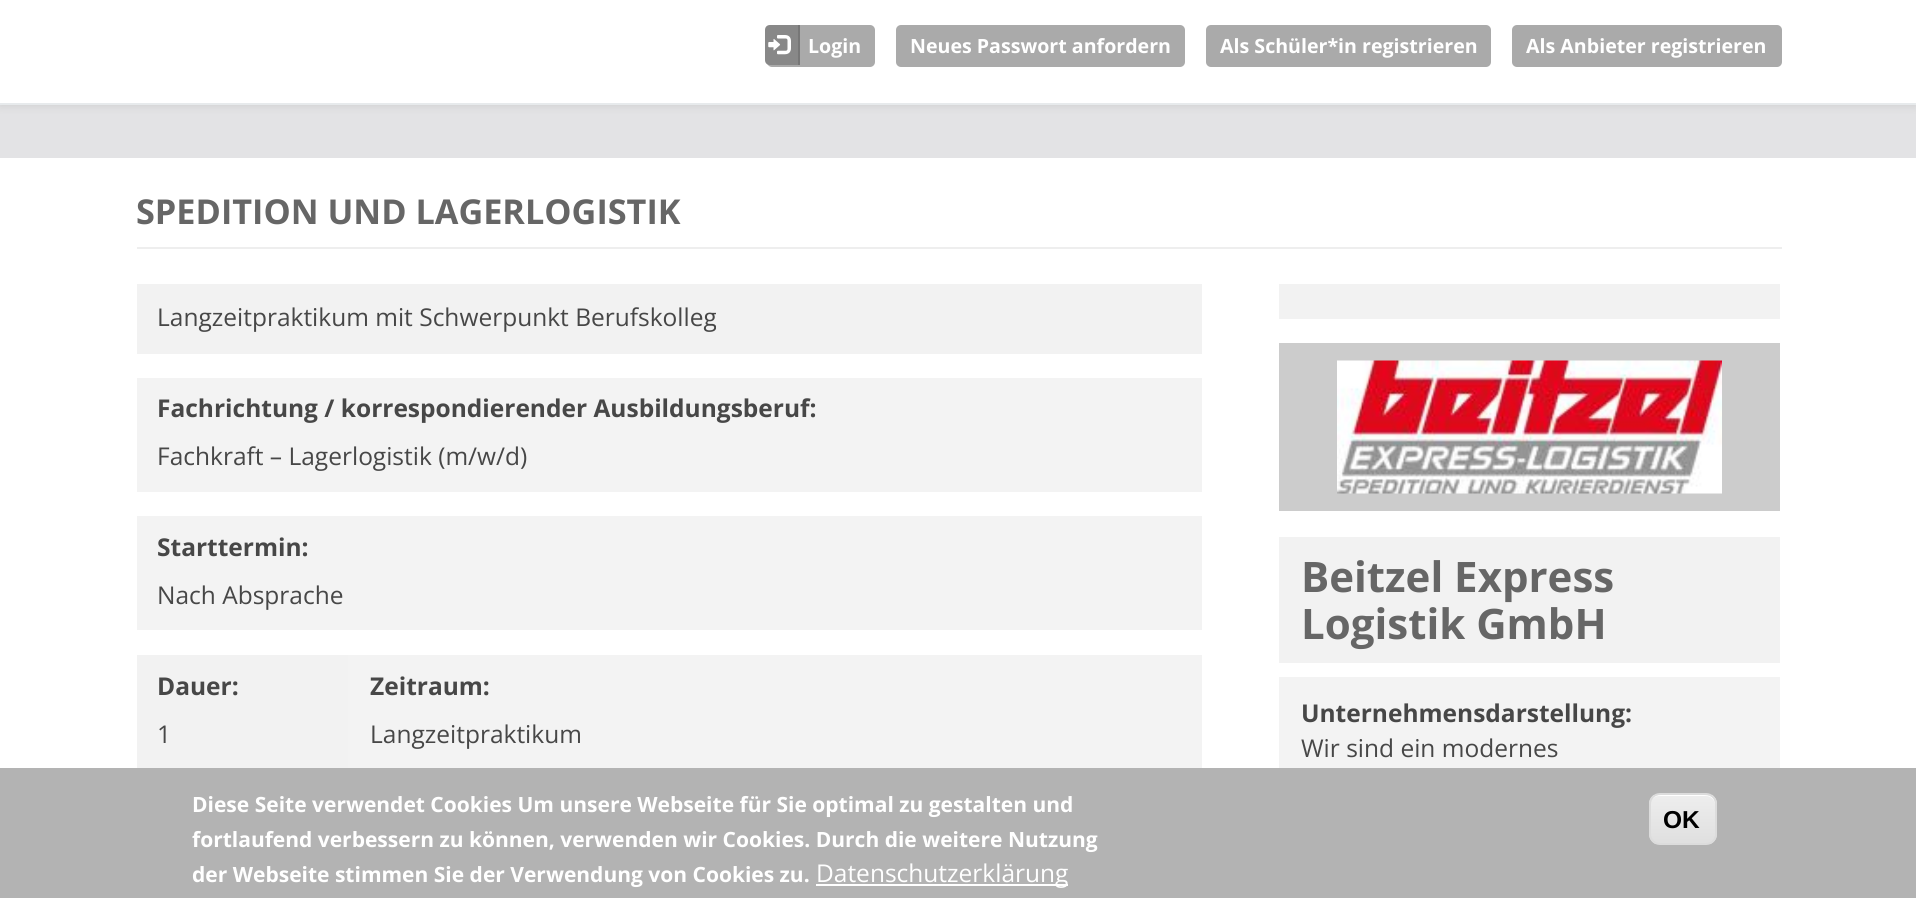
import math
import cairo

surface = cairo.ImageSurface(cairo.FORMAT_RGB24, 1916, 898)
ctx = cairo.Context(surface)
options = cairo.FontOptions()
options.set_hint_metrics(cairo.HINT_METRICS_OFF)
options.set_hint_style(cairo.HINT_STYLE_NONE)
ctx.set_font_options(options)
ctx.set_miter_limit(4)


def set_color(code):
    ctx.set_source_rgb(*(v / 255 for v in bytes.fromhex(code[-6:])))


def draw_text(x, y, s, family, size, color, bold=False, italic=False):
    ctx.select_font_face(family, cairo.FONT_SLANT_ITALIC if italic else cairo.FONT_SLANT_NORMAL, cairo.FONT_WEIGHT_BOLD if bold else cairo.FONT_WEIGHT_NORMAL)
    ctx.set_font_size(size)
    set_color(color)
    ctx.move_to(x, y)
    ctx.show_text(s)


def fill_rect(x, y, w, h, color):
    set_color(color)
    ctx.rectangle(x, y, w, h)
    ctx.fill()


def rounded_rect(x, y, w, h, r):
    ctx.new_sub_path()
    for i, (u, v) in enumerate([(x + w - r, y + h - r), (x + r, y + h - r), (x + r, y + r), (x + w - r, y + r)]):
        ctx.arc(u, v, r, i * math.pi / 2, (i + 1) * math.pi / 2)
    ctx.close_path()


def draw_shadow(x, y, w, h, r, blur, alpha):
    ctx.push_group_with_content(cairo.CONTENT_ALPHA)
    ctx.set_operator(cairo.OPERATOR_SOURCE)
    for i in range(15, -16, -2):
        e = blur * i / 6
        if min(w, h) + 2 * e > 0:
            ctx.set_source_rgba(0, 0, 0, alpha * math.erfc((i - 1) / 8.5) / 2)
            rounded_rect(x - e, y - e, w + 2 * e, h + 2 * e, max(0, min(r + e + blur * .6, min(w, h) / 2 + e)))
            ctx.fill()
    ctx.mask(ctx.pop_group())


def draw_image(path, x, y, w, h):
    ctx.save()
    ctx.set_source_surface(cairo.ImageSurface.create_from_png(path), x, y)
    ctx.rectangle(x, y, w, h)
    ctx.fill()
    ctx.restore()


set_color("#ffffff")
ctx.paint()
fill_rect(0, 105, 1916, 53, "#e3e3e5")
ctx.save()
ctx.rectangle(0, 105, 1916, 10)
ctx.clip()
set_color("#cccccc")
draw_shadow(0, 0, 1916, 105, 0, 5, 1)
ctx.restore()
fill_rect(0, 103, 1916, 2, "#e7eaec")
set_color("#aaaaaa")
rounded_rect(767, 25, 108, 42, 5)
ctx.fill()
set_color("#888888")
ctx.new_path()
ctx.move_to(770, 25)
ctx.line_to(800, 25)
ctx.line_to(800, 65)
ctx.line_to(770, 65)
ctx.curve_to(767, 65, 765, 63, 765, 60)
ctx.line_to(765, 30)
ctx.curve_to(765, 27, 767, 25, 770, 25)
ctx.close_path()
ctx.fill()
fill_rect(798, 25, 2, 40, "#777777")
draw_image("assets/img1.png", 768, 35, 23, 20)
draw_text(808, 53, "Login", "Open Sans", 19.6, "#ffffff", bold=True)
set_color("#aaaaaa")
rounded_rect(896, 25, 289, 42, 5)
ctx.fill()
draw_text(910, 53, "Neues Passwort anfordern", "Open Sans", 19.6, "#ffffff", bold=True)
set_color("#aaaaaa")
rounded_rect(1206, 25, 285, 42, 5)
ctx.fill()
draw_text(1220, 53, "Als Schüler*in registrieren", "Open Sans", 19.6, "#ffffff", bold=True)
set_color("#aaaaaa")
rounded_rect(1512, 25, 270, 42, 5)
ctx.fill()
draw_text(1526, 53, "Als Anbieter registrieren", "Open Sans", 19.6, "#ffffff", bold=True)
fill_rect(137, 247, 1645, 2, "#eeeeee")
draw_text(136, 224, "SPEDITION UND LAGERLOGISTIK", "Open Sans", 34.25, "#666666", bold=True)
fill_rect(137, 284, 1065, 70, "#f2f2f2")
draw_text(157, 326, "Langzeitpraktikum mit Schwerpunkt Berufskolleg", "Open Sans", 24.5, "#474747")
fill_rect(137, 378, 1065, 114, "#f3f3f3")
draw_text(157, 417, "Fachrichtung / korrespondierender Ausbildungsberuf:", "Open Sans", 24.5, "#474747", bold=True)
draw_text(157, 465, "Fachkraft – Lagerlogistik (m/w/d)", "Open Sans", 24.5, "#474747")
fill_rect(137, 516, 1065, 114, "#f3f3f3")
draw_text(157, 556, "Starttermin:", "Open Sans", 24.5, "#474747", bold=True)
draw_text(157, 604, "Nach Absprache", "Open Sans", 24.5, "#474747")
fill_rect(137, 655, 211, 113, "#f2f2f2")
draw_text(157, 695, "Dauer:", "Open Sans", 24.5, "#474747", bold=True)
draw_text(157, 743, "1", "Open Sans", 24.5, "#474747")
fill_rect(348, 655, 854, 113, "#f3f3f3")
draw_text(370, 695, "Zeitraum:", "Open Sans", 24.5, "#474747", bold=True)
draw_text(370, 743, "Langzeitpraktikum", "Open Sans", 24.5, "#474747")
fill_rect(1279, 284, 501, 35, "#f2f2f2")
fill_rect(1279, 343, 501, 168, "#cccccc")
draw_image("assets/img2.png", 1337, 360, 385, 134)
fill_rect(1279, 537, 501, 126, "#f2f2f2")
draw_text(1301, 592, "Beitzel Express", "Open Sans", 42, "#666666", bold=True)
draw_text(1301, 639, "Logistik GmbH", "Open Sans", 42, "#666666", bold=True)
fill_rect(1279, 677, 501, 91, "#f3f3f3")
draw_text(1301, 722, "Unternehmensdarstellung:", "Open Sans", 24.5, "#474747", bold=True)
draw_text(1301, 757, "Wir sind ein modernes", "Open Sans", 24.5, "#474747")
fill_rect(0, 768, 1916, 130, "#b3b3b3")
draw_text(192, 812, "Diese Seite verwendet Cookies Um unsere Webseite für Sie optimal zu gestalten und", "Open Sans", 21, "#ffffff", bold=True)
draw_text(192, 847, "fortlaufend verbessern zu können, verwenden wir Cookies. Durch die weitere Nutzung", "Open Sans", 21, "#ffffff", bold=True)
draw_text(192, 882, "der Webseite stimmen Sie der Verwendung von Cookies zu.", "Open Sans", 21, "#ffffff", bold=True)
fill_rect(816, 884, 252, 2, "#ffffff")
draw_text(816, 882, "Datenschutzerklärung", "Open Sans", 24.5, "#ffffff")
ctx.save()
rounded_rect(1649, 793, 68, 52, 11)
ctx.clip()
gradient = cairo.LinearGradient(1683, 795, 1683, 844)
gradient.add_color_stop_rgba(0.05, 0.929, 0.929, 0.929, 1)
gradient.add_color_stop_rgba(1, 0.875, 0.875, 0.875, 1)
ctx.set_source(gradient)
ctx.rectangle(1649, 795, 68, 49)
ctx.fill()
ctx.restore()
ctx.new_path()
ctx.move_to(1659, 796)
ctx.line_to(1706, 796)
ctx.curve_to(1711, 796, 1715, 800, 1715, 805)
ctx.curve_to(1715, 794, 1706, 795, 1698, 795)
ctx.line_to(1667, 795)
ctx.curve_to(1659, 795, 1650, 794, 1650, 805)
ctx.curve_to(1650, 800, 1654, 796, 1659, 796)
ctx.close_path()
ctx.fill()
rounded_rect(1650, 794, 66, 50, 10)
set_color("#dcdcdc")
ctx.stroke()
draw_text(1663, 828, "OK", "Liberation Sans", 24.5, "#000000", bold=True)
surface.write_to_png("output.png")
